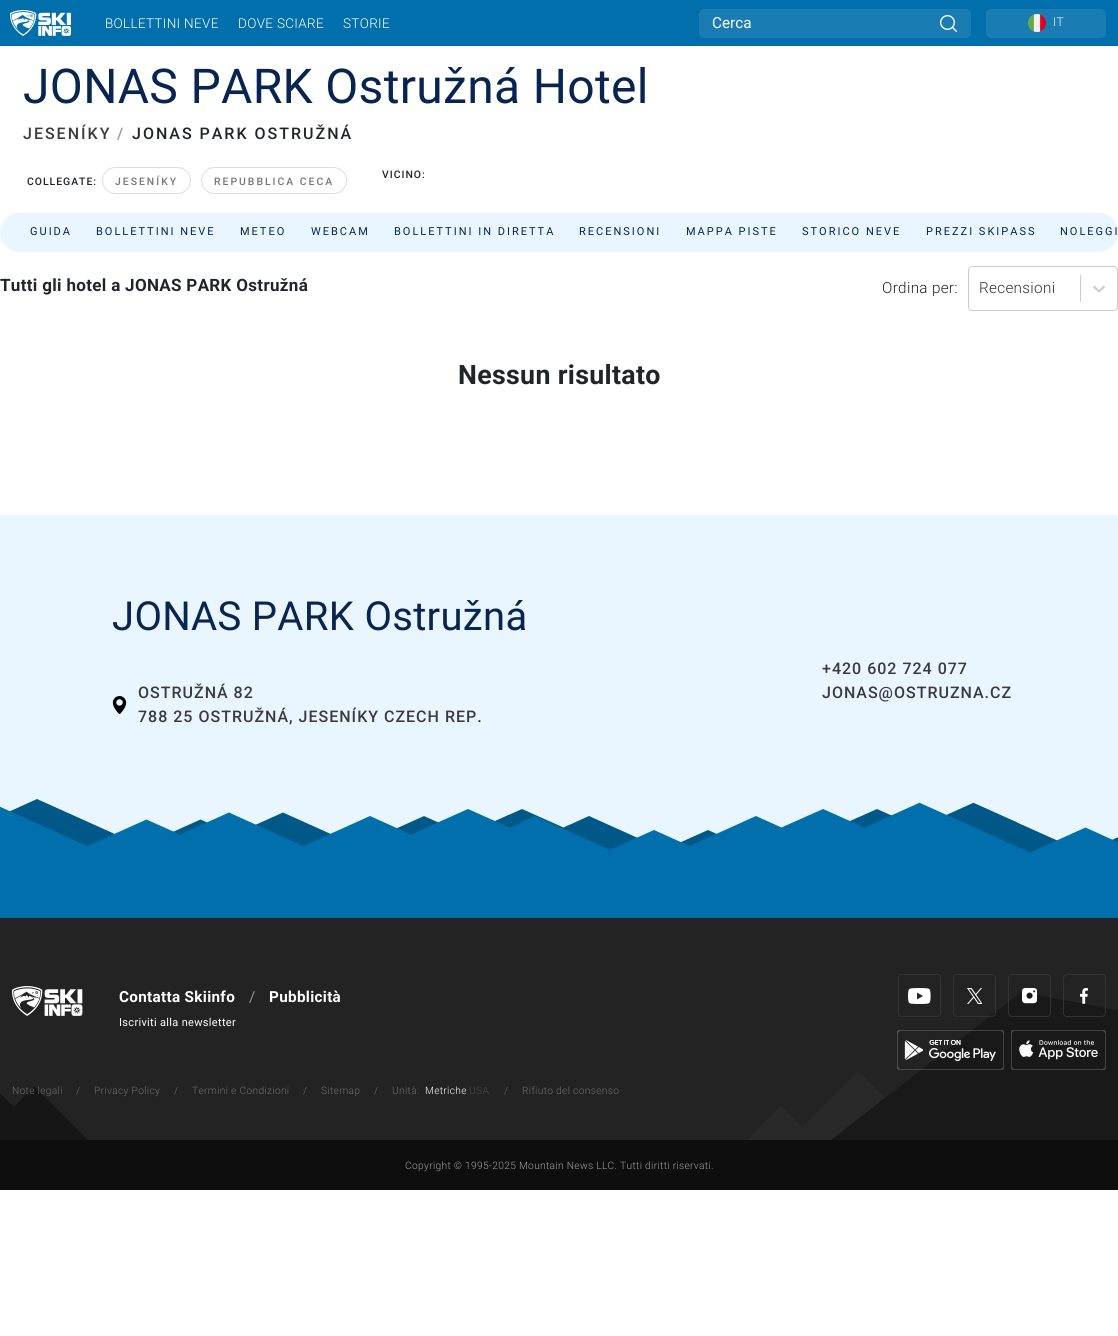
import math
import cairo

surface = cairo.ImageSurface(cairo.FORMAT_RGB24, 1118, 1336)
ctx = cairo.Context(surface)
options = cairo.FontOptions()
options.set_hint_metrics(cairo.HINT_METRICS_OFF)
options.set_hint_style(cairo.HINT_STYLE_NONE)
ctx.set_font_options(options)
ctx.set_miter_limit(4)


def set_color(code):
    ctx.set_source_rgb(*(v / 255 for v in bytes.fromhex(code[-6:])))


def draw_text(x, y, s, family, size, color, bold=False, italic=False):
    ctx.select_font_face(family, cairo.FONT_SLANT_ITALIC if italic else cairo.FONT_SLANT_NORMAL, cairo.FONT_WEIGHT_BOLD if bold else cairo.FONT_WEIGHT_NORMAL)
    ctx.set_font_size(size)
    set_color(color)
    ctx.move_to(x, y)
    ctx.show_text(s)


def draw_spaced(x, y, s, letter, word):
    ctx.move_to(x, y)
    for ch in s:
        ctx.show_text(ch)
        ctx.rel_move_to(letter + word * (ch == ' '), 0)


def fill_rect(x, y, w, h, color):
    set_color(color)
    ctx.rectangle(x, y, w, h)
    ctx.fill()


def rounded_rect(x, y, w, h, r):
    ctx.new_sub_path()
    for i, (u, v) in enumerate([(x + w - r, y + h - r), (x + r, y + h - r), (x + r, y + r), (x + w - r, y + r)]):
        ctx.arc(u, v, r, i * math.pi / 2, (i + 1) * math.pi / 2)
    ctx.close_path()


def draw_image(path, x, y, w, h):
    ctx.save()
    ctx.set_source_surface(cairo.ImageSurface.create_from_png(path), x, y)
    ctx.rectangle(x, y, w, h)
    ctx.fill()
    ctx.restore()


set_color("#ffffff")
ctx.paint()
fill_rect(0, 0, 1118, 46, "#006fac")
draw_image("assets/img1.png", 10, 10, 61, 26)
ctx.select_font_face("Roboto Light")
ctx.set_font_size(13.5)
set_color("#ffffff")
draw_spaced(105, 28, "BOLLETTINI NEVE", 0.32, 0)
draw_spaced(238, 28, "DOVE SCIARE", 0.32, 0)
draw_spaced(343, 28, "STORIE", 0.32, 0)
set_color("#197db4")
rounded_rect(699, 9, 272, 29, 5)
ctx.fill()
draw_text(712, 28, "Cerca", "Roboto", 15.25, "#ffffff")
draw_image("assets/img2.png", 940, 15, 17, 17)
set_color("#197db4")
rounded_rect(986, 9, 120, 29, 5)
ctx.fill()
draw_image("assets/img3.png", 1028, 14, 18, 18)
ctx.select_font_face("Roboto Light")
ctx.set_font_size(12)
set_color("#ffffff")
draw_spaced(1053, 26, "IT", 0.32, 0)
ctx.select_font_face("Roboto")
ctx.set_font_size(48)
set_color("#082450")
draw_spaced(23, 103, "JONAS PARK Ostružná Hotel", 0.32, 0)
ctx.select_font_face("Roboto Medium")
ctx.set_font_size(16)
set_color("#3b3b3b")
draw_spaced(23, 139, "JESENÍKY", 2, 0)
set_color("#999999")
draw_spaced(117, 139, "/", 2, 0)
set_color("#212529")
draw_spaced(132, 139, "JONAS PARK OSTRUŽNÁ", 2, 0)
ctx.set_font_size(10.4)
draw_spaced(27, 185, "COLLEGATE:", 1, 0)
rounded_rect(102.5, 167.5, 88, 26, 13)
set_color("#dddddd")
ctx.set_line_width(1)
ctx.stroke()
set_color("#777777")
draw_spaced(115, 185, "JESENÍKY", 2, 0)
rounded_rect(201.5, 167.5, 145, 26, 13)
set_color("#dddddd")
ctx.stroke()
set_color("#777777")
draw_spaced(214, 185, "REPUBBLICA CECA", 2, 0)
set_color("#212529")
draw_spaced(382, 178, "VICINO:", 1, 0)
set_color("#e9f5ff")
rounded_rect(0, 213, 1118, 39, 19.5)
ctx.fill()
ctx.select_font_face("Roboto")
ctx.set_font_size(11)
set_color("#082450")
draw_spaced(30, 235, "GUIDA", 2, 0)
draw_spaced(96, 235, "BOLLETTINI NEVE", 2, 0)
draw_spaced(240, 235, "METEO", 2, 0)
draw_spaced(311, 235, "WEBCAM", 2, 0)
draw_spaced(394, 235, "BOLLETTINI IN DIRETTA", 2, 0)
draw_spaced(579, 235, "RECENSIONI", 2, 0)
draw_spaced(686, 235, "MAPPA PISTE", 2, 0)
draw_spaced(802, 235, "STORICO NEVE", 2, 0)
draw_spaced(926, 235, "PREZZI SKIPASS", 2, 0)
draw_spaced(1060, 235, "NOLEGGI", 2, 0)
ctx.select_font_face("Roboto", cairo.FONT_SLANT_NORMAL, cairo.FONT_WEIGHT_BOLD)
ctx.set_font_size(17)
set_color("#212529")
draw_spaced(0, 291, "Tutti gli hotel a JONAS PARK Ostružná", 0.32, 0)
ctx.select_font_face("Roboto Light")
ctx.set_font_size(15.25)
draw_spaced(882, 293, "Ordina per:", 0.32, 0)
rounded_rect(968.5, 266.5, 149, 44, 3.5)
set_color("#cccccc")
ctx.stroke()
set_color("#333333")
draw_spaced(979, 293, "Recensioni", 0.32, 0)
fill_rect(1080, 275, 1, 27, "#cccccc")
draw_image("assets/img4.png", 1093, 285, 12, 8)
ctx.select_font_face("Roboto", cairo.FONT_SLANT_NORMAL, cairo.FONT_WEIGHT_BOLD)
ctx.set_font_size(26.75)
set_color("#212529")
draw_spaced(458, 384, "Nessun risultato", 0.32, 0)
fill_rect(0, 515, 1118, 328, "#e9f5ff")
draw_image("assets/img5.png", 0, 799, 1118, 119)
ctx.select_font_face("Roboto")
ctx.set_font_size(40)
set_color("#082450")
draw_spaced(112, 630, "JONAS PARK Ostružná", 0.32, 0)
draw_image("assets/img6.png", 112, 696, 15, 19)
ctx.select_font_face("Roboto Medium")
ctx.set_font_size(16)
set_color("#3b3b3b")
draw_spaced(138, 698, "OSTRUŽNÁ 82", 1, 0)
draw_spaced(138, 722, "788 25 OSTRUŽNÁ, JESENÍKY CZECH REP.", 1, 0)
draw_spaced(822, 674, "+420 602 724 077", 1, 0)
draw_spaced(822, 698, "JONAS@OSTRUZNA.CZ", 1, 0)
fill_rect(0, 918, 1118, 222, "#232323")
draw_image("assets/img7.png", 12, 986, 71, 30)
ctx.select_font_face("Roboto", cairo.FONT_SLANT_NORMAL, cairo.FONT_WEIGHT_BOLD)
ctx.set_font_size(15.25)
set_color("#ffffff")
draw_spaced(119, 1002, "Contatta Skiinfo", 0.32, 0)
ctx.select_font_face("Roboto")
set_color("#919191")
draw_spaced(249, 1002, "/", 0.32, 0)
ctx.select_font_face("Roboto", cairo.FONT_SLANT_NORMAL, cairo.FONT_WEIGHT_BOLD)
set_color("#ffffff")
draw_spaced(269, 1002, "Pubblicità", 0.32, 0)
ctx.select_font_face("Roboto")
ctx.set_font_size(11)
draw_spaced(119, 1026, "Iscriviti alla newsletter", 0.32, 0)
set_color("#161616")
ctx.new_path()
ctx.move_to(-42, 1051)
ctx.line_to(-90, 1099)
ctx.line_to(-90, 1140)
ctx.line_to(88, 1140)
ctx.line_to(34, 1086)
ctx.line_to(14, 1107)
ctx.close_path()
ctx.fill()
ctx.select_font_face("Roboto Light")
ctx.set_font_size(10.2)
set_color("#6f6f6f")
draw_spaced(12, 1094, "Note legali", 0.32, 0)
draw_spaced(76, 1094, "/", 0.32, 0)
draw_spaced(94, 1094, "Privacy Policy", 0.32, 0)
draw_spaced(174, 1094, "/", 0.32, 0)
draw_spaced(192, 1094, "Termini e Condizioni", 0.32, 0)
draw_spaced(303, 1094, "/", 0.32, 0)
draw_spaced(321, 1094, "Sitemap", 0.32, 0)
draw_spaced(374, 1094, "/", 0.32, 0)
draw_spaced(392, 1094, "Unità:", 0.32, 0)
set_color("#ffffff")
draw_spaced(425, 1094, "Metriche", 0.32, 0)
set_color("#494949")
draw_spaced(469, 1094, "USA", 0.32, 0)
set_color("#6f6f6f")
draw_spaced(504, 1094, "/", 0.32, 0)
draw_spaced(522, 1094, "Rifiuto del consenso", 0.32, 0)
ctx.save()
ctx.rectangle(728, 1071, 220, 69)
ctx.clip()
set_color("#292929")
ctx.new_path()
ctx.move_to(858, 1071)
ctx.line_to(906, 1119)
ctx.line_to(948, 1160)
ctx.line_to(728, 1160)
ctx.line_to(781, 1106)
ctx.line_to(802, 1127)
ctx.close_path()
ctx.fill()
ctx.restore()
set_color("#191919")
ctx.new_path()
ctx.move_to(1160, 976)
ctx.line_to(1117, 1010)
ctx.line_to(1021, 992)
ctx.line_to(831, 1140)
ctx.line_to(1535, 1140)
ctx.line_to(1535, 1100)
ctx.line_to(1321, 933)
ctx.line_to(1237, 976)
ctx.close_path()
ctx.fill()
rounded_rect(898.5, 974.5, 42, 42, 3.5)
set_color("#333333")
ctx.stroke()
draw_image("assets/img8.png", 908, 988, 23, 16)
rounded_rect(953.5, 974.5, 42, 42, 3.5)
ctx.stroke()
draw_image("assets/img9.png", 967, 988, 15, 16)
rounded_rect(1008.5, 974.5, 42, 42, 3.5)
ctx.stroke()
draw_image("assets/img10.png", 1022, 988, 15, 16)
rounded_rect(1063.5, 974.5, 42, 42, 3.5)
ctx.stroke()
draw_image("assets/img11.png", 1080, 988, 8, 16)
draw_image("assets/img12.png", 897, 1030, 107, 40)
draw_image("assets/img13.png", 1011, 1030, 95, 40)
fill_rect(0, 1140, 1118, 50, "#0e0e0e")
set_color("#9f9f9f")
draw_spaced(405, 1169, "Copyright © 1995-2025 Mountain News LLC. Tutti diritti riservati.", 0.32, 0)
surface.write_to_png("output.png")
